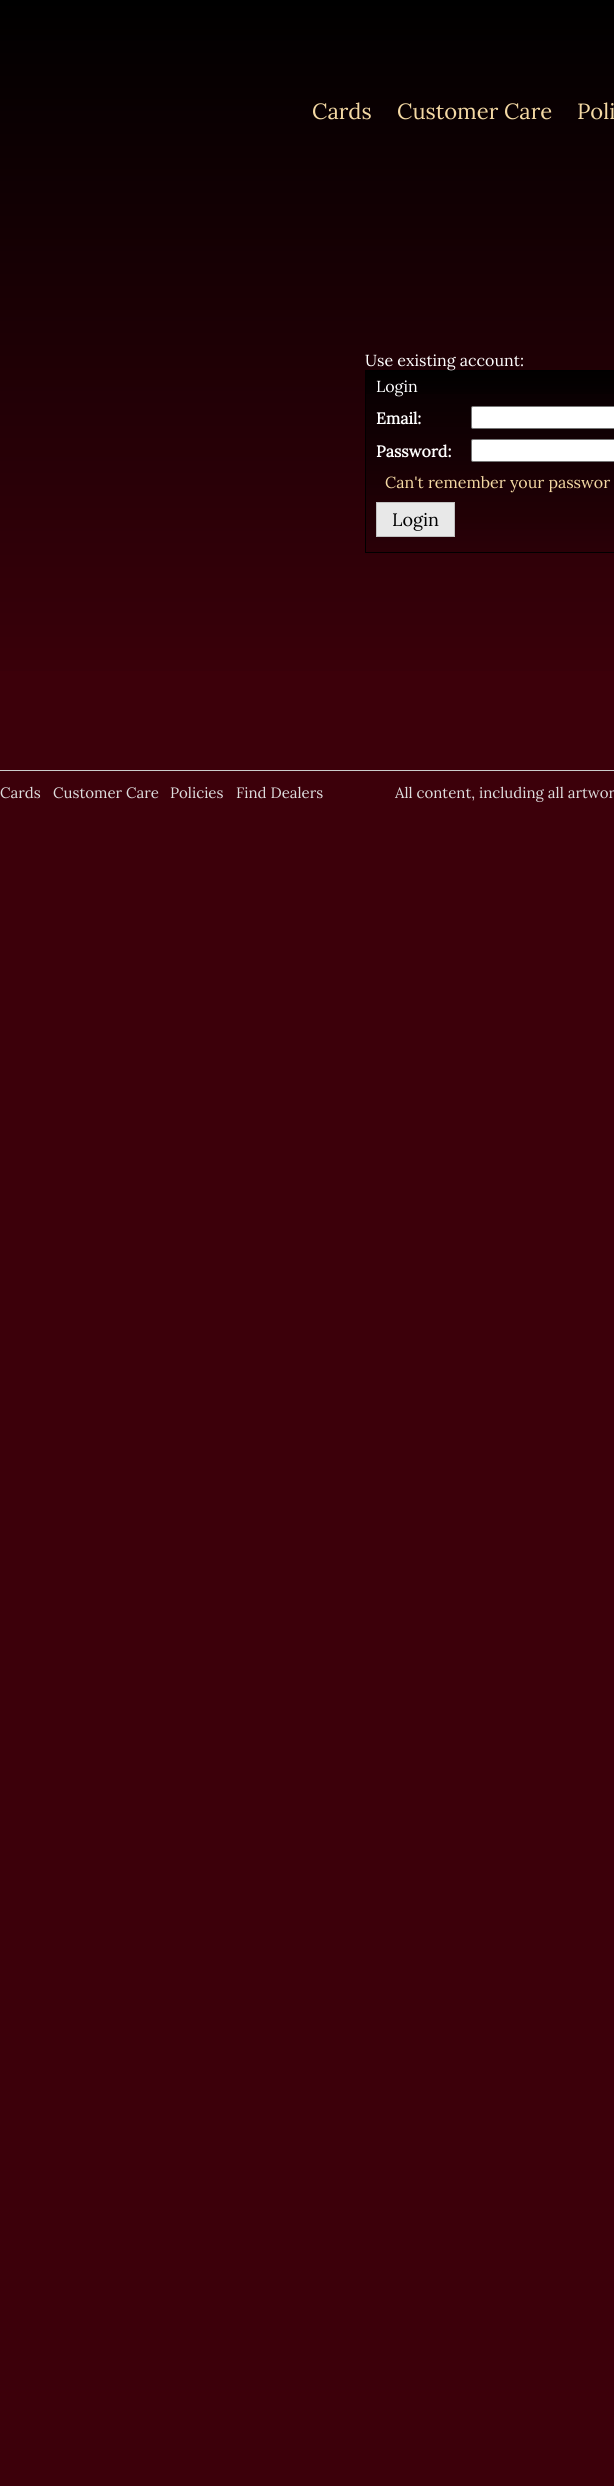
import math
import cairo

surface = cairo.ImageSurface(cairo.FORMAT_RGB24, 614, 2486)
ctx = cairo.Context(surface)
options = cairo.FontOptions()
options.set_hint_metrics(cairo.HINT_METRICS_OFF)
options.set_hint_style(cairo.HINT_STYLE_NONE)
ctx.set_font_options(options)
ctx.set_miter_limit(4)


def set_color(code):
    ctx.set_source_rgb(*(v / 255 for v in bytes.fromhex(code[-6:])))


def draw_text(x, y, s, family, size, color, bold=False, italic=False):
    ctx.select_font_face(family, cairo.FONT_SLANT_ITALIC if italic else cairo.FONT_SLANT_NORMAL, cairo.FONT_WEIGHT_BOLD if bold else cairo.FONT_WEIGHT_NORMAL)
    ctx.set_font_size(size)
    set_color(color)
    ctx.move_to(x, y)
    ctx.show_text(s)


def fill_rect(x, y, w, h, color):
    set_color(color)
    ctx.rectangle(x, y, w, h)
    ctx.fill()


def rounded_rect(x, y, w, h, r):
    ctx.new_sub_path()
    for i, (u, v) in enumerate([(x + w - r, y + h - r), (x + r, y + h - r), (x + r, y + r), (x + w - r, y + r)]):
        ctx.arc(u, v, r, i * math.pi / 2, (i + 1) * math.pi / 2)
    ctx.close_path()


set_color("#3c000a")
ctx.paint()
gradient = cairo.LinearGradient(307, 1000, 307, 0)
gradient.add_color_stop_rgba(0, 0.235, 0, 0.039, 1)
gradient.add_color_stop_rgba(0.3, 0.235, 0, 0.039, 1)
gradient.add_color_stop_rgba(1, 0, 0, 0, 1)
ctx.set_source(gradient)
ctx.rectangle(0, 0, 614, 671)
ctx.fill()
draw_text(312, 119, "Cards", "Lora", 22, "#f4d9a4")
draw_text(397, 119, "Customer Care", "Lora", 22, "#f4d9a4")
draw_text(577, 119, "Poli", "Lora", 22, "#f4d9a4")
gradient = cairo.LinearGradient(548, 552, 548, 371)
gradient.add_color_stop_rgba(0, 0, 0, 0, 0.1)
gradient.add_color_stop_rgba(1, 0, 0, 0, 0.8)
ctx.set_source(gradient)
ctx.rectangle(366, 371, 248, 181)
ctx.fill()
ctx.rectangle(365.5, 370.5, 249, 182)
set_color("#000000")
ctx.set_line_width(1)
ctx.stroke()
draw_text(365, 366, "Use existing account:", "Lora", 16, "#ffffff")
gradient = cairo.LinearGradient(548, 401, 548, 371)
gradient.add_color_stop_rgba(0, 0, 0, 0, 0.1)
gradient.add_color_stop_rgba(1, 0, 0, 0, 0.8)
ctx.set_source(gradient)
ctx.rectangle(366, 371, 248, 23)
ctx.fill()
draw_text(376, 392, "Login", "Lora", 16, "#ffffff")
draw_text(376, 424, "Email:", "Lora", 16, "#ffffff", bold=True)
rounded_rect(471.5, 406.5, 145, 22, 1.5)
ctx.fill_preserve()
set_color("#767676")
ctx.stroke()
draw_text(376, 457, "Password:", "Lora", 16, "#ffffff", bold=True)
rounded_rect(471.5, 439.5, 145, 22, 1.5)
ctx.fill_preserve()
set_color("#767676")
ctx.stroke()
draw_text(385, 488, "Can't remember your passwor", "Lora", 16, "#f4d9a4")
set_color("#e8e8e8")
ctx.rectangle(376.5, 502.5, 78, 34)
ctx.fill_preserve()
set_color("#c1c1c1")
ctx.stroke()
draw_text(392, 526, "Login", "Lora", 18, "#000000")
fill_rect(0, 770, 614, 1, "#cccccc")
draw_text(0, 798, "Cards", "Lora", 15, "#dddddd")
draw_text(53, 798, "Customer Care", "Lora", 15, "#dddddd")
draw_text(170, 798, "Policies", "Lora", 15, "#dddddd")
draw_text(236, 798, "Find Dealers", "Lora", 15, "#dddddd")
draw_text(395, 798, "All content, including all artwor", "Lora", 15, "#dddddd")
surface.write_to_png("output.png")
